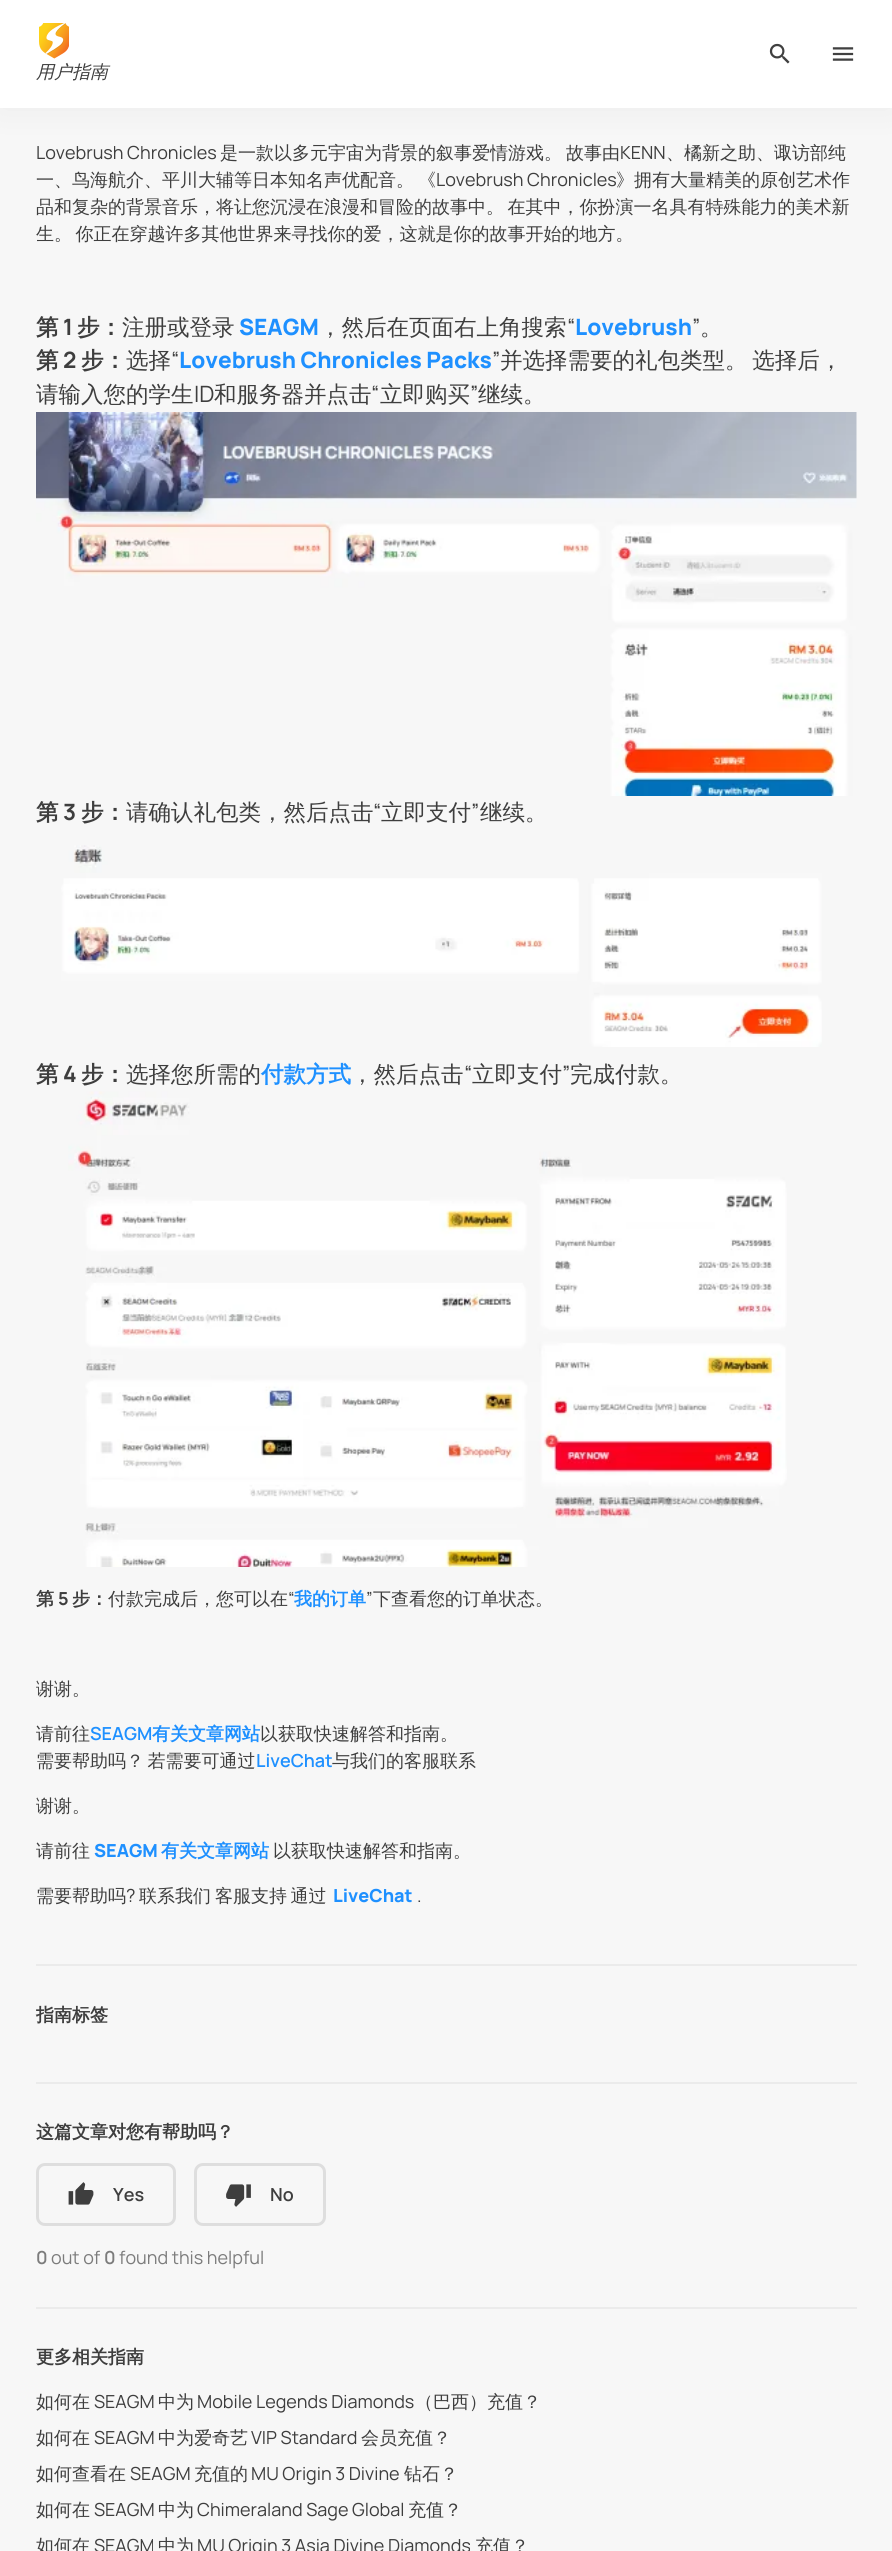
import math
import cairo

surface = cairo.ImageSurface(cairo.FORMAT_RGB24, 892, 2551)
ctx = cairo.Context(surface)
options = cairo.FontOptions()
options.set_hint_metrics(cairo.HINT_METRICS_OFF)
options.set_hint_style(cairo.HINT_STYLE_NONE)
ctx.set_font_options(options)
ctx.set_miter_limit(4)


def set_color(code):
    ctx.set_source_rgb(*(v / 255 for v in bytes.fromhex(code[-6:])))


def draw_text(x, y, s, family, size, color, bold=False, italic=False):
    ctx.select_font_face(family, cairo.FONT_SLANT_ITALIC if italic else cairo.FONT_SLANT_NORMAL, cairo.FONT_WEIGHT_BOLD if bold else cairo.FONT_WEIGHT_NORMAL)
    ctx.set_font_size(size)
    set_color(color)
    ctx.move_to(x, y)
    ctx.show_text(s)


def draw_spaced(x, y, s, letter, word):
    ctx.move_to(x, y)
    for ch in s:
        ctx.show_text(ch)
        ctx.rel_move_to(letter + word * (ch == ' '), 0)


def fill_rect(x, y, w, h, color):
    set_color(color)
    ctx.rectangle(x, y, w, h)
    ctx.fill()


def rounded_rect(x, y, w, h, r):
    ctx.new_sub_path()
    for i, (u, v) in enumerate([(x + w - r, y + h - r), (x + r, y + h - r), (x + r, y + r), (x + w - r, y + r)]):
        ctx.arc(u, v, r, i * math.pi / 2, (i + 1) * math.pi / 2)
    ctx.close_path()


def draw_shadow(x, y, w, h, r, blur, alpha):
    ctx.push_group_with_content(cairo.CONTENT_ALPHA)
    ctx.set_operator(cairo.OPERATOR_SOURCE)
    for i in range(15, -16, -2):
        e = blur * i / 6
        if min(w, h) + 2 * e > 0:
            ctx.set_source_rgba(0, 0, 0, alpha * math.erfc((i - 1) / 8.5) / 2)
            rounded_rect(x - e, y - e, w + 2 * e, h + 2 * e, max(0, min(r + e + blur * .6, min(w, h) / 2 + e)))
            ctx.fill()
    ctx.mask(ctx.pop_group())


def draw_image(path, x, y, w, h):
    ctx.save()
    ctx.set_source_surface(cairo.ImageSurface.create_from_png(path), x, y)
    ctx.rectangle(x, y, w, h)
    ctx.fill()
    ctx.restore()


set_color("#f7f7f7")
ctx.paint()
set_color("#000000")
draw_shadow(0, 0, 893, 108, 0, 18, 0.05)
fill_rect(0, 0, 892, 108, "#ffffff")
draw_image("assets/img1.png", 769, 43, 21, 21)
draw_image("assets/img2.png", 832, 47, 22, 14)
draw_image("assets/img3.png", 39, 23, 30, 36)
draw_text(36, 78, "用户指南", "WenQuanYi Zen Hei Medium", 18, "#3e3e3e", italic=True)
draw_text(36, 159, "Lovebrush Chronicles", "Manrope", 18, "#3e3e3e")
draw_text(220, 159, "是一款以多元宇宙为背景的叙事爱情游戏。", "WenQuanYi Zen Hei Medium", 18, "#3e3e3e")
draw_text(566, 159, "故事由", "WenQuanYi Zen Hei Medium", 18, "#3e3e3e")
draw_text(620, 159, "KENN", "Manrope", 18, "#3e3e3e")
draw_text(666, 159, "、橘新之助、诹访部纯", "WenQuanYi Zen Hei Medium", 18, "#3e3e3e")
draw_text(36, 186, "一、鸟海航介、平川大辅等日本知名声优配音。", "WenQuanYi Zen Hei Medium", 18, "#3e3e3e")
draw_text(418, 186, "《", "WenQuanYi Zen Hei Medium", 18, "#3e3e3e")
draw_text(436, 186, "Lovebrush Chronicles", "Manrope", 18, "#3e3e3e")
draw_text(616, 186, "》拥有大量精美的原创艺术作", "WenQuanYi Zen Hei Medium", 18, "#3e3e3e")
draw_spaced(36, 213, "品和复杂的背景音乐，将让您沉浸在浪漫和冒险的故事中。 在其中，你扮演一名具有特殊能力的美术新", 0, -2)
draw_spaced(36, 240, "生。 你正在穿越许多其他世界来寻找你的爱，这就是你的故事开始的地方。", 0, -2)
draw_text(36, 335, "第", "WenQuanYi Zen Hei", 22.5, "#3e3e3e", bold=True)
draw_text(63, 335, "1", "Manrope", 22.5, "#3e3e3e", bold=True)
draw_text(77, 335, "步：", "WenQuanYi Zen Hei", 22.5, "#3e3e3e", bold=True)
draw_text(122, 335, "注册或登录", "WenQuanYi Zen Hei Medium", 22.5, "#3e3e3e")
draw_text(239, 335, "SEAGM", "Manrope ExtraBold", 22.5, "#1e90ff")
draw_text(319, 335, "，然后在页面右上角搜索", "WenQuanYi Zen Hei Medium", 22.5, "#3e3e3e")
draw_text(567, 335, "“", "Manrope", 22.5, "#3e3e3e")
draw_text(575, 335, "Lovebrush", "Manrope ExtraBold", 22.5, "#1e90ff")
draw_text(692, 335, "”", "Manrope", 22.5, "#3e3e3e")
draw_text(700, 335, "。", "WenQuanYi Zen Hei Medium", 22.5, "#3e3e3e")
draw_text(36, 368, "第", "WenQuanYi Zen Hei", 22.5, "#3e3e3e", bold=True)
draw_text(63, 368, "2", "Manrope", 22.5, "#3e3e3e", bold=True)
draw_text(81, 368, "步：", "WenQuanYi Zen Hei", 22.5, "#3e3e3e", bold=True)
draw_text(126, 368, "选择", "WenQuanYi Zen Hei Medium", 22.5, "#3e3e3e")
draw_text(171, 368, "“", "Manrope", 22.5, "#3e3e3e")
draw_text(179, 368, "Lovebrush Chronicles Packs", "Manrope ExtraBold", 22.5, "#1e90ff")
draw_text(492, 368, "”", "Manrope", 22.5, "#3e3e3e")
ctx.select_font_face("WenQuanYi Zen Hei Medium")
draw_spaced(500, 368, "并选择需要的礼包类型。 选择后，", 0, -2)
draw_text(36, 402, "请输入您的学生", "WenQuanYi Zen Hei Medium", 22.5, "#3e3e3e")
draw_text(194, 402, "ID", "Manrope", 22.5, "#3e3e3e")
draw_text(214, 402, "和服务器并点击", "WenQuanYi Zen Hei Medium", 22.5, "#3e3e3e")
draw_text(371, 402, "“", "Manrope", 22.5, "#3e3e3e")
draw_text(380, 402, "立即购买", "WenQuanYi Zen Hei Medium", 22.5, "#3e3e3e")
draw_text(470, 402, "”", "Manrope", 22.5, "#3e3e3e")
draw_text(478, 402, "继续。", "WenQuanYi Zen Hei Medium", 22.5, "#3e3e3e")
draw_image("assets/img4.png", 36, 412, 821, 384)
draw_text(36, 820, "第", "WenQuanYi Zen Hei", 22.5, "#3e3e3e", bold=True)
draw_text(63, 820, "3", "Manrope", 22.5, "#3e3e3e", bold=True)
draw_text(81, 820, "步：", "WenQuanYi Zen Hei", 22.5, "#3e3e3e", bold=True)
draw_text(126, 820, "请确认礼包类，然后点击", "WenQuanYi Zen Hei Medium", 22.5, "#3e3e3e")
draw_text(373, 820, "“", "Manrope", 22.5, "#3e3e3e")
draw_text(381, 820, "立即支付", "WenQuanYi Zen Hei Medium", 22.5, "#3e3e3e")
draw_text(471, 820, "”", "Manrope", 22.5, "#3e3e3e")
draw_text(480, 820, "继续。", "WenQuanYi Zen Hei Medium", 22.5, "#3e3e3e")
draw_image("assets/img5.png", 61, 845, 761, 202)
draw_text(36, 1082, "第", "WenQuanYi Zen Hei", 22.5, "#3e3e3e", bold=True)
draw_text(63, 1082, "4", "Manrope", 22.5, "#3e3e3e", bold=True)
draw_text(81, 1082, "步：", "WenQuanYi Zen Hei", 22.5, "#3e3e3e", bold=True)
draw_text(126, 1082, "选择您所需的", "WenQuanYi Zen Hei Medium", 22.5, "#3e3e3e")
draw_text(261, 1082, "付款方式", "WenQuanYi Zen Hei", 22.5, "#1e90ff", bold=True)
draw_text(351, 1082, "，然后点击", "WenQuanYi Zen Hei Medium", 22.5, "#3e3e3e")
draw_text(464, 1082, "“", "Manrope", 22.5, "#3e3e3e")
draw_text(472, 1082, "立即支付", "WenQuanYi Zen Hei Medium", 22.5, "#3e3e3e")
draw_text(562, 1082, "”", "Manrope", 22.5, "#3e3e3e")
draw_text(570, 1082, "完成付款。", "WenQuanYi Zen Hei Medium", 22.5, "#3e3e3e")
draw_image("assets/img6.png", 68, 1091, 719, 476)
draw_text(36, 1605, "第", "WenQuanYi Zen Hei", 18, "#3e3e3e", bold=True)
draw_text(58, 1605, "5", "Manrope", 18, "#3e3e3e", bold=True)
draw_text(72, 1605, "步：", "WenQuanYi Zen Hei", 18, "#3e3e3e", bold=True)
draw_text(108, 1605, "付款完成后，您可以在", "WenQuanYi Zen Hei Medium", 18, "#3e3e3e")
draw_text(288, 1605, "“", "Manrope", 18, "#3e3e3e")
draw_text(294, 1605, "我的订单", "WenQuanYi Zen Hei", 18, "#1e90ff", bold=True)
draw_text(366, 1605, "”", "Manrope", 18, "#3e3e3e")
draw_text(373, 1605, "下查看您的订单状态。", "WenQuanYi Zen Hei Medium", 18, "#3e3e3e")
draw_text(36, 1695, "谢谢。", "WenQuanYi Zen Hei Medium", 18, "#3e3e3e")
draw_text(36, 1740, "请前往", "WenQuanYi Zen Hei Medium", 18, "#3e3e3e")
draw_text(90, 1740, "SEAGM", "Manrope SemiBold", 18, "#1e90ff")
draw_text(152, 1740, "有关文章网站", "WenQuanYi Zen Hei", 18, "#1e90ff", bold=True)
draw_text(260, 1740, "以获取快速解答和指南。", "WenQuanYi Zen Hei Medium", 18, "#3e3e3e")
draw_spaced(36, 1767, "需要帮助吗？ 若需要可通过", 0, -2)
draw_text(256, 1767, "LiveChat", "Manrope SemiBold", 18, "#1e90ff")
draw_text(332, 1767, "与我们的客服联系", "WenQuanYi Zen Hei Medium", 18, "#3e3e3e")
draw_text(36, 1812, "谢谢。", "WenQuanYi Zen Hei Medium", 18, "#3e3e3e")
draw_text(36, 1857, "请前往", "WenQuanYi Zen Hei Medium", 18, "#3e3e3e")
draw_text(94, 1857, "SEAGM", "Manrope ExtraBold", 18, "#1e90ff")
draw_text(161, 1857, "有关文章网站", "WenQuanYi Zen Hei", 18, "#1e90ff", bold=True)
draw_text(273, 1857, "以获取快速解答和指南。", "WenQuanYi Zen Hei Medium", 18, "#3e3e3e")
draw_text(36, 1902, "需要帮助吗", "WenQuanYi Zen Hei Medium", 18, "#3e3e3e")
draw_text(126, 1902, "?", "Manrope", 18, "#3e3e3e")
draw_text(139, 1902, "联系我们", "WenQuanYi Zen Hei Medium", 18, "#3e3e3e")
draw_spaced(215, 1902, "客服支持 通过", 0, -2)
draw_text(333, 1902, "LiveChat", "Manrope ExtraBold", 18, "#1e90ff")
draw_text(417, 1902, ".", "Manrope", 18, "#3e3e3e")
fill_rect(36, 1964, 821, 2, "#ebebeb")
draw_text(36, 2021, "指南标签", "WenQuanYi Zen Hei", 18, "#3e3e3e", bold=True)
fill_rect(36, 2082, 821, 2, "#ebebeb")
draw_text(36, 2138, "这篇文章对您有帮助吗？", "WenQuanYi Zen Hei", 18, "#3e3e3e", bold=True)
rounded_rect(37.5, 2164.5, 137, 60, 7.5)
set_color("#dedede")
ctx.set_line_width(3)
ctx.stroke()
draw_image("assets/img7.png", 68, 2182, 26, 23)
draw_text(113, 2201, "Yes", "Manrope SemiBold", 18, "#3e3e3e")
rounded_rect(195.5, 2164.5, 129, 60, 7.5)
set_color("#dedede")
ctx.stroke()
draw_image("assets/img8.png", 226, 2184, 25, 23)
draw_text(270, 2201, "No", "Manrope SemiBold", 18, "#3e3e3e")
draw_text(36, 2264, "0", "Manrope SemiBold", 18, "#7c7c7c")
draw_text(51, 2264, "out of", "Manrope", 18, "#7c7c7c")
draw_text(104, 2264, "0", "Manrope SemiBold", 18, "#7c7c7c")
draw_text(119, 2264, "found this helpful", "Manrope", 18, "#7c7c7c")
fill_rect(36, 2307, 821, 2, "#ebebeb")
draw_text(36, 2363, "更多相关指南", "WenQuanYi Zen Hei", 18, "#3e3e3e", bold=True)
draw_text(36, 2408, "如何在", "WenQuanYi Zen Hei Medium", 18, "#3e3e3e")
draw_text(94, 2408, "SEAGM", "Manrope", 18, "#3e3e3e")
draw_text(158, 2408, "中为", "WenQuanYi Zen Hei Medium", 18, "#3e3e3e")
draw_text(197, 2408, "Mobile Legends Diamonds", "Manrope", 18, "#3e3e3e")
draw_text(415, 2408, "（巴西）充值？", "WenQuanYi Zen Hei Medium", 18, "#3e3e3e")
draw_text(36, 2444, "如何在", "WenQuanYi Zen Hei Medium", 18, "#3e3e3e")
draw_text(94, 2444, "SEAGM", "Manrope", 18, "#3e3e3e")
draw_text(158, 2444, "中为爱奇艺", "WenQuanYi Zen Hei Medium", 18, "#3e3e3e")
draw_text(251, 2444, "VIP Standard", "Manrope", 18, "#3e3e3e")
draw_text(361, 2444, "会员充值？", "WenQuanYi Zen Hei Medium", 18, "#3e3e3e")
draw_text(36, 2480, "如何查看在", "WenQuanYi Zen Hei Medium", 18, "#3e3e3e")
draw_text(130, 2480, "SEAGM", "Manrope", 18, "#3e3e3e")
draw_text(194, 2480, "充值的", "WenQuanYi Zen Hei Medium", 18, "#3e3e3e")
draw_text(251, 2480, "MU Origin 3 Divine", "Manrope", 18, "#3e3e3e")
draw_text(404, 2480, "钻石？", "WenQuanYi Zen Hei Medium", 18, "#3e3e3e")
draw_text(36, 2516, "如何在", "WenQuanYi Zen Hei Medium", 18, "#3e3e3e")
draw_text(94, 2516, "SEAGM", "Manrope", 18, "#3e3e3e")
draw_text(158, 2516, "中为", "WenQuanYi Zen Hei Medium", 18, "#3e3e3e")
draw_text(197, 2516, "Chimeraland Sage Global", "Manrope", 18, "#3e3e3e")
draw_text(408, 2516, "充值？", "WenQuanYi Zen Hei Medium", 18, "#3e3e3e")
draw_text(36, 2552, "如何在", "WenQuanYi Zen Hei Medium", 18, "#3e3e3e")
draw_text(94, 2552, "SEAGM", "Manrope", 18, "#3e3e3e")
draw_text(158, 2552, "中为", "WenQuanYi Zen Hei Medium", 18, "#3e3e3e")
draw_text(197, 2552, "MU Origin 3 Asia Divine Diamonds", "Manrope", 18, "#3e3e3e")
draw_text(475, 2552, "充值？", "WenQuanYi Zen Hei Medium", 18, "#3e3e3e")
surface.write_to_png("output.png")
